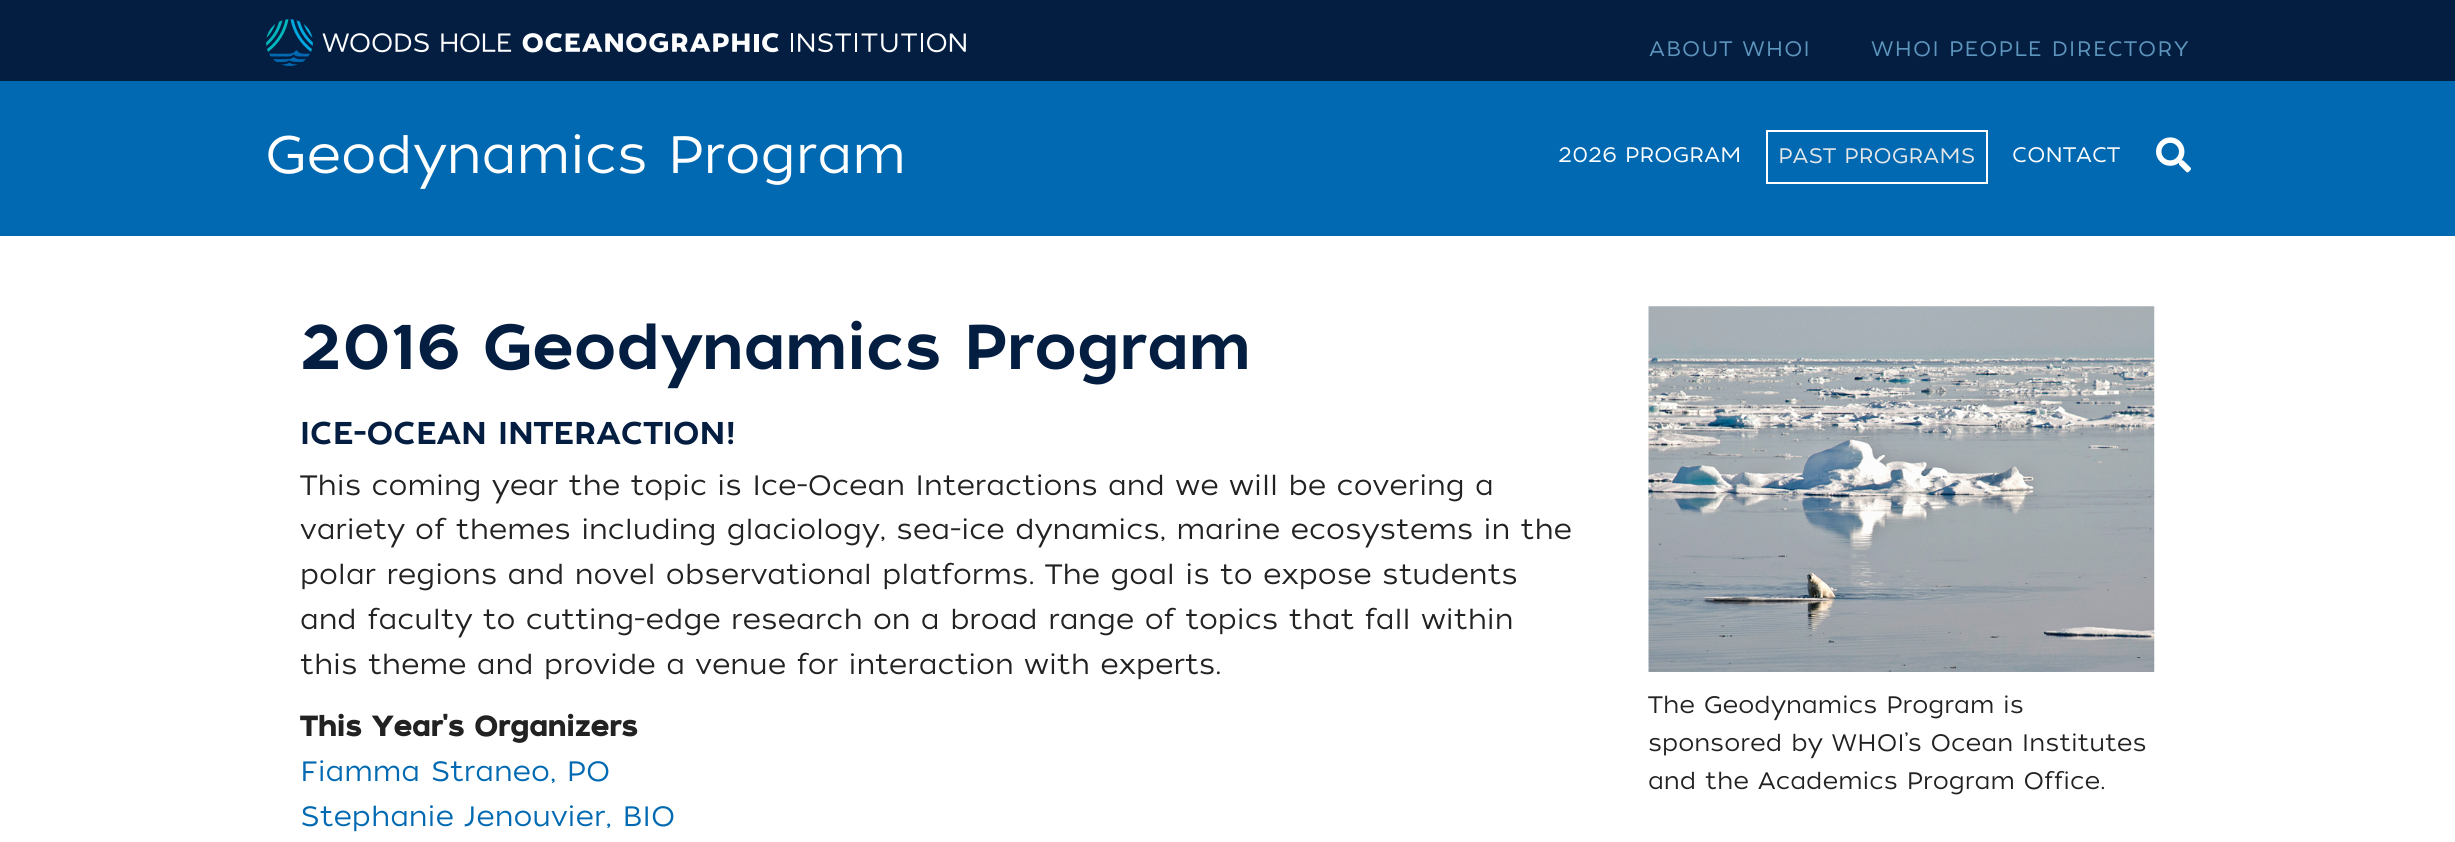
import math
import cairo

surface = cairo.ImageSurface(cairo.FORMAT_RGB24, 2455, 842)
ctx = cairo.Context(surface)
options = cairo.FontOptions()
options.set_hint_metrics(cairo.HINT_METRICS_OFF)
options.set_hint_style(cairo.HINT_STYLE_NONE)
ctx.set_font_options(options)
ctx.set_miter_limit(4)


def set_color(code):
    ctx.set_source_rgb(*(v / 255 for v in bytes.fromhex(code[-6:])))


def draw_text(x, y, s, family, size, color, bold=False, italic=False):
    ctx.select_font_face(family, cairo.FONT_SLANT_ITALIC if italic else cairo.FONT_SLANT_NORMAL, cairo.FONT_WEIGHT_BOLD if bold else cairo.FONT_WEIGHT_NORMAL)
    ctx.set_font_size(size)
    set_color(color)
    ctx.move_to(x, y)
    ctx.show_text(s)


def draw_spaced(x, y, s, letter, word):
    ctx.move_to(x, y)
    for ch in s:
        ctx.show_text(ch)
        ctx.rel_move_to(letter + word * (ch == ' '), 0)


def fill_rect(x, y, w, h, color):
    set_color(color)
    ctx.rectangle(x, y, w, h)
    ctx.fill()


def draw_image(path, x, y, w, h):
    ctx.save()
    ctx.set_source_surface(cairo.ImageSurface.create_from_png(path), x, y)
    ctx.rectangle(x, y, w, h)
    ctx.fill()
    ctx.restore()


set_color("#041e42")
ctx.paint()
draw_image("assets/img1.png", 266, 19, 700, 47)
ctx.select_font_face("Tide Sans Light")
ctx.set_font_size(21)
set_color("#5d95bc")
draw_spaced(1649, 56, "ABOUT WHOI", 1.05, 0)
draw_spaced(1871, 56, "WHOI PEOPLE DIRECTORY", 1.05, 0)
fill_rect(0, 81, 2455, 155, "#0069b1")
draw_text(265, 173, "Geodynamics Program", "Tide Sans Light", 52.5, "#ffffff")
draw_text(1558, 162, "2026 PROGRAM", "Tide Sans Light", 21, "#ffffff")
ctx.rectangle(1767, 131, 220, 52)
ctx.stroke()
draw_text(1778, 163, "PAST PROGRAMS", "Tide Sans Light", 21, "#e6e7e8")
draw_text(2012, 162, "CONTACT", "Tide Sans Light", 21, "#ffffff")
draw_image("assets/img2.png", 2156, 137, 35, 36)
fill_rect(0, 236, 2455, 606, "#ffffff")
draw_text(300, 369, "2016 Geodynamics Program", "Tide Sans Medium", 63, "#041e42")
draw_text(300, 444, "ICE-OCEAN INTERACTION!", "Tide Sans Medium", 31.5, "#041e42")
draw_text(300, 495, "This coming year the topic is Ice-Ocean Interactions and we will be covering a", "Tide Sans Light", 28, "#222222")
draw_text(300, 539, "variety of themes including glaciology, sea-ice dynamics, marine ecosystems in the", "Tide Sans Light", 28, "#222222")
draw_text(300, 584, "polar regions and novel observational platforms. The goal is to expose students", "Tide Sans Light", 28, "#222222")
draw_text(300, 629, "and faculty to cutting-edge research on a broad range of topics that fall within", "Tide Sans Light", 28, "#222222")
draw_text(300, 674, "this theme and provide a venue for interaction with experts.", "Tide Sans Light", 28, "#222222")
draw_text(300, 736, "This Year's Organizers", "Tide Sans", 28, "#222222", bold=True)
draw_text(300, 781, "Fiamma Straneo, PO", "Tide Sans Light", 28, "#0069b1")
draw_text(300, 826, "Stephanie Jenouvier, BIO", "Tide Sans Light", 28, "#0069b1")
draw_image("assets/img3.png", 1648, 306, 507, 366)
draw_text(1648, 713, "The Geodynamics Program is", "Tide Sans Light", 23.8, "#222222")
draw_text(1648, 751, "sponsored by WHOI’s Ocean Institutes", "Tide Sans Light", 23.8, "#222222")
draw_text(1648, 789, "and the Academics Program Office.", "Tide Sans Light", 23.8, "#222222")
surface.write_to_png("output.png")
